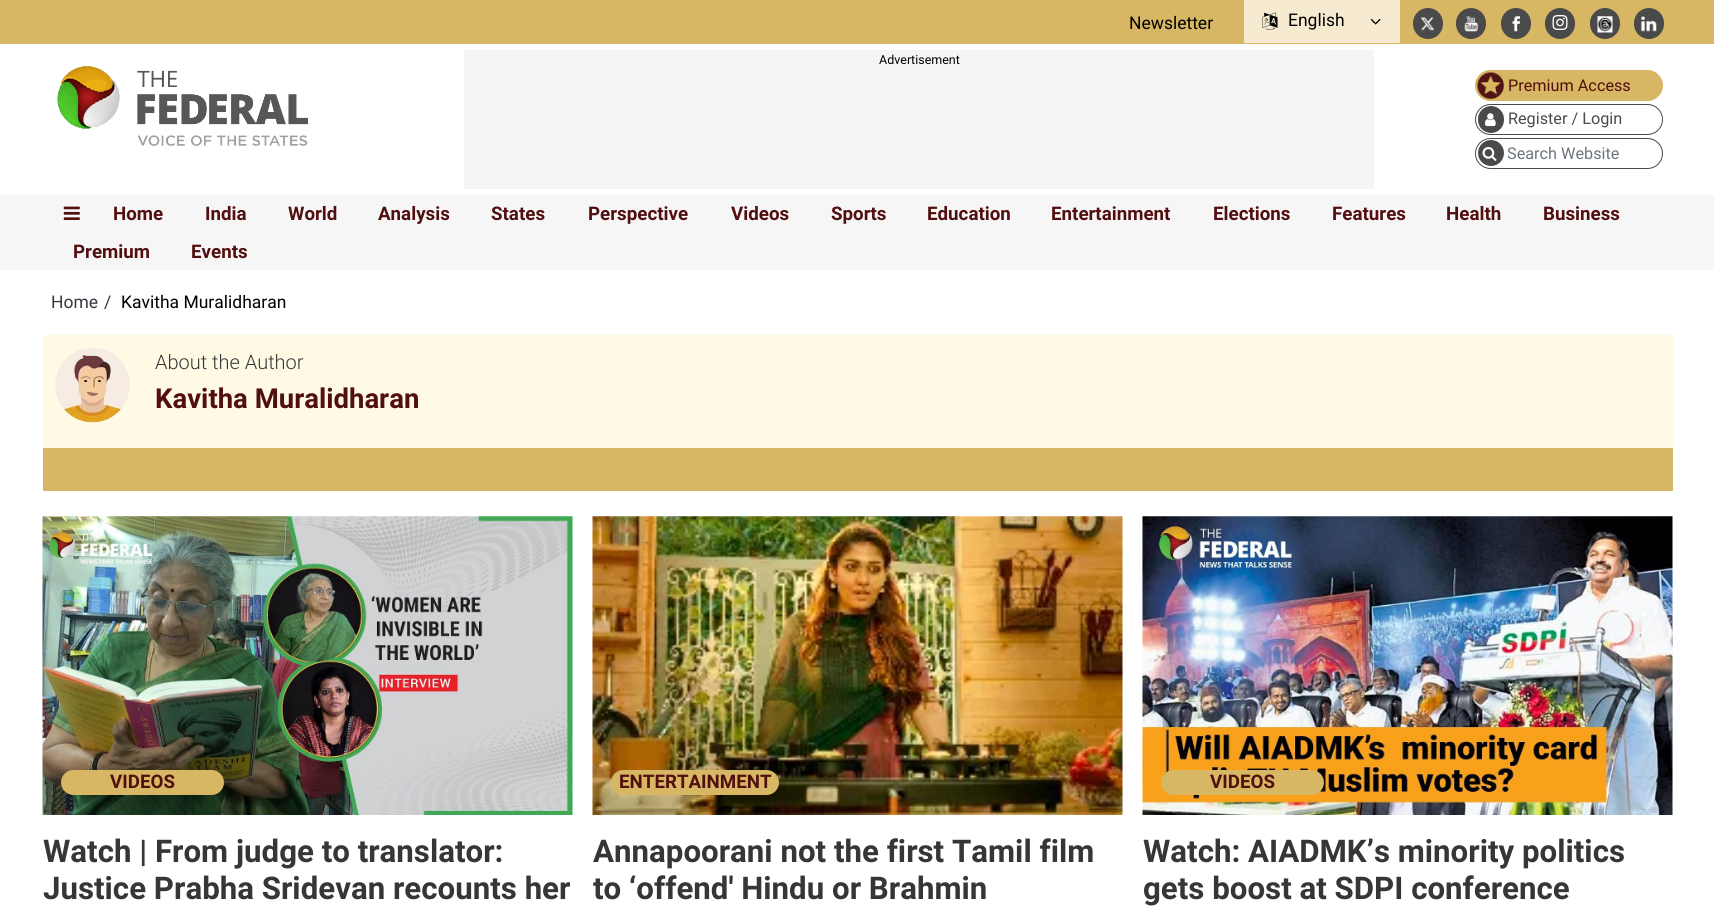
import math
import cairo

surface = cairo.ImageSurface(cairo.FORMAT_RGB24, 1714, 913)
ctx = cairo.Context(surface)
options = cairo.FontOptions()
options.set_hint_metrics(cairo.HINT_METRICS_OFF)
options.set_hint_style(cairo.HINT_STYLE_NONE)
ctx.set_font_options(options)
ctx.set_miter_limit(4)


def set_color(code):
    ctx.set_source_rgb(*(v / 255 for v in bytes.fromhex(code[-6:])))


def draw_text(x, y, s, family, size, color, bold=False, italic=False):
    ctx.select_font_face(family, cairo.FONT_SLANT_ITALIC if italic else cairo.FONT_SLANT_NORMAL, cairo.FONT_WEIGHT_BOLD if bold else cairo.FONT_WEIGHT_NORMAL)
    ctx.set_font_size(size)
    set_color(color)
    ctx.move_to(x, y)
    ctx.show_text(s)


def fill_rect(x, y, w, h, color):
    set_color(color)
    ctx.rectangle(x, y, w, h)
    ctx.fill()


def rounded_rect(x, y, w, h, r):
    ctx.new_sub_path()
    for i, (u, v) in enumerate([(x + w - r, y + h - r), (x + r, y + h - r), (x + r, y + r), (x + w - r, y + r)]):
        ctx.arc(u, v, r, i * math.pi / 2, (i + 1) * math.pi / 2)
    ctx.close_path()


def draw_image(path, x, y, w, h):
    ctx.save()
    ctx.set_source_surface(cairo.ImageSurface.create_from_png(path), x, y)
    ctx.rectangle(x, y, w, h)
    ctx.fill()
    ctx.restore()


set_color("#ffffff")
ctx.paint()
fill_rect(0, 0, 1714, 44, "#d7b763")
draw_text(1129, 29, "Newsletter", "Roboto", 17.5, "#000000")
fill_rect(1244, 0, 156, 43, "#f6ebd0")
draw_image("assets/img1.png", 1262, 12, 16, 18)
draw_text(1288, 26, "English", "Roboto", 17.5, "#000000")
draw_image("assets/img2.png", 1370, 18, 11, 7)
set_color("#4a4a4a")
rounded_rect(1413, 8, 30, 31, 15)
ctx.fill()
draw_image("assets/img3.png", 1421, 17, 14, 14)
rounded_rect(1456, 8, 30, 31, 15)
ctx.fill()
draw_image("assets/img4.png", 1464, 16, 14, 16)
rounded_rect(1501, 8, 30, 31, 15)
ctx.fill()
draw_image("assets/img5.png", 1512, 16, 8, 16)
rounded_rect(1545, 8, 30, 31, 15)
ctx.fill()
draw_image("assets/img6.png", 1552, 15, 16, 15)
rounded_rect(1590, 8, 30, 31, 15)
ctx.fill()
draw_image("assets/img7.png", 1597, 16, 16, 17)
rounded_rect(1634, 8, 30, 31, 15)
ctx.fill()
draw_image("assets/img8.png", 1641, 16, 16, 16)
fill_rect(464, 50, 910, 139, "#f4f5f7")
draw_text(879, 64, "Advertisement", "Roboto", 12.5, "#000000")
draw_image("assets/img9.png", 57, 66, 251, 80)
set_color("#d7b763")
rounded_rect(1475, 70, 188, 31, 15.5)
ctx.fill()
draw_image("assets/img10.png", 1477, 72, 27, 27)
draw_text(1508, 91, "Premium Access", "Roboto", 16.25, "#520f0f")
rounded_rect(1475.5, 104.5, 187, 30, 15)
set_color("#4a4a4a")
ctx.set_line_width(1)
ctx.stroke()
rounded_rect(1478, 106, 26, 27, 13)
ctx.fill()
draw_image("assets/img11.png", 1485, 113, 11, 14)
draw_text(1508, 124, "Register / Login", "Roboto", 16.25, "#4a4a4a")
rounded_rect(1475.5, 138.5, 187, 30, 15)
ctx.stroke()
ctx.arc(1491, 153, 13, 0, 2 * math.pi)
ctx.fill()
draw_image("assets/img12.png", 1482, 147, 15, 14)
ctx.save()
ctx.rectangle(1508, 144, 135, 19)
ctx.clip()
draw_text(1507, 159, "Search Website", "Roboto", 16.25, "#6c757d")
ctx.restore()
fill_rect(0, 195, 1714, 75, "#f6f6f6")
draw_image("assets/img13.png", 63, 206, 17, 14)
draw_text(113, 220, "Home", "Roboto", 18.75, "#520f0f", bold=True)
draw_text(205, 220, "India", "Roboto", 18.75, "#520f0f", bold=True)
draw_text(288, 220, "World", "Roboto", 18.75, "#520f0f", bold=True)
draw_text(378, 220, "Analysis", "Roboto", 18.75, "#520f0f", bold=True)
draw_text(491, 220, "States", "Roboto", 18.75, "#520f0f", bold=True)
draw_text(588, 220, "Perspective", "Roboto", 18.75, "#520f0f", bold=True)
draw_text(731, 220, "Videos", "Roboto", 18.75, "#520f0f", bold=True)
draw_text(831, 220, "Sports", "Roboto", 18.75, "#520f0f", bold=True)
draw_text(927, 220, "Education", "Roboto", 18.75, "#520f0f", bold=True)
draw_text(1051, 220, "Entertainment", "Roboto", 18.75, "#520f0f", bold=True)
draw_text(1213, 220, "Elections", "Roboto", 18.75, "#520f0f", bold=True)
draw_text(1332, 220, "Features", "Roboto", 18.75, "#520f0f", bold=True)
draw_text(1446, 220, "Health", "Roboto", 18.75, "#520f0f", bold=True)
draw_text(1543, 220, "Business", "Roboto", 18.75, "#520f0f", bold=True)
draw_text(73, 258, "Premium", "Roboto", 18.75, "#520f0f", bold=True)
draw_text(191, 258, "Events", "Roboto", 18.75, "#520f0f", bold=True)
draw_text(51, 308, "Home", "Roboto", 17.5, "#343a40")
draw_text(104, 308, "/", "Roboto", 17.5, "#363636")
draw_text(121, 308, "Kavitha Muralidharan", "Roboto", 17.5, "#000000")
fill_rect(43, 335, 1630, 113, "#fffae4")
fill_rect(43, 448, 1630, 43, "#d7b763")
draw_image("assets/img14.png", 55, 348, 75, 75)
draw_text(155, 369, "About the Author", "Roboto Light", 20, "#363636")
draw_text(155, 408, "Kavitha Muralidharan", "Roboto", 27.5, "#520f0f", bold=True)
draw_image("assets/img15.png", 42, 516, 531, 299)
set_color("#d7b763")
rounded_rect(61, 770, 163, 25, 12.5)
ctx.fill()
draw_text(110, 788, "VIDEOS", "Roboto", 18.75, "#520f0f", bold=True)
draw_text(43, 862, "Watch | From judge to translator:", "Roboto", 31.25, "#363636", bold=True)
draw_text(43, 899, "Justice Prabha Sridevan recounts her", "Roboto", 31.25, "#363636", bold=True)
draw_image("assets/img16.png", 592, 516, 531, 299)
set_color("#d7b763")
rounded_rect(611, 770, 168, 25, 12.5)
ctx.fill()
draw_text(619, 788, "ENTERTAINMENT", "Roboto", 18.75, "#520f0f", bold=True)
draw_text(593, 862, "Annapoorani not the first Tamil film", "Roboto", 31.25, "#363636", bold=True)
ctx.save()
ctx.rectangle(593, 815, 530, 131)
ctx.clip()
draw_text(593, 899, "to ‘offend' Hindu or Brahmin", "Roboto", 31.25, "#363636", bold=True)
ctx.restore()
draw_image("assets/img17.png", 1142, 516, 531, 299)
set_color("#d7b763")
rounded_rect(1161, 770, 163, 25, 12.5)
ctx.fill()
draw_text(1210, 788, "VIDEOS", "Roboto", 18.75, "#520f0f", bold=True)
draw_text(1143, 862, "Watch: AIADMK’s minority politics", "Roboto", 31.25, "#363636", bold=True)
draw_text(1143, 899, "gets boost at SDPI conference", "Roboto", 31.25, "#363636", bold=True)
surface.write_to_png("output.png")
